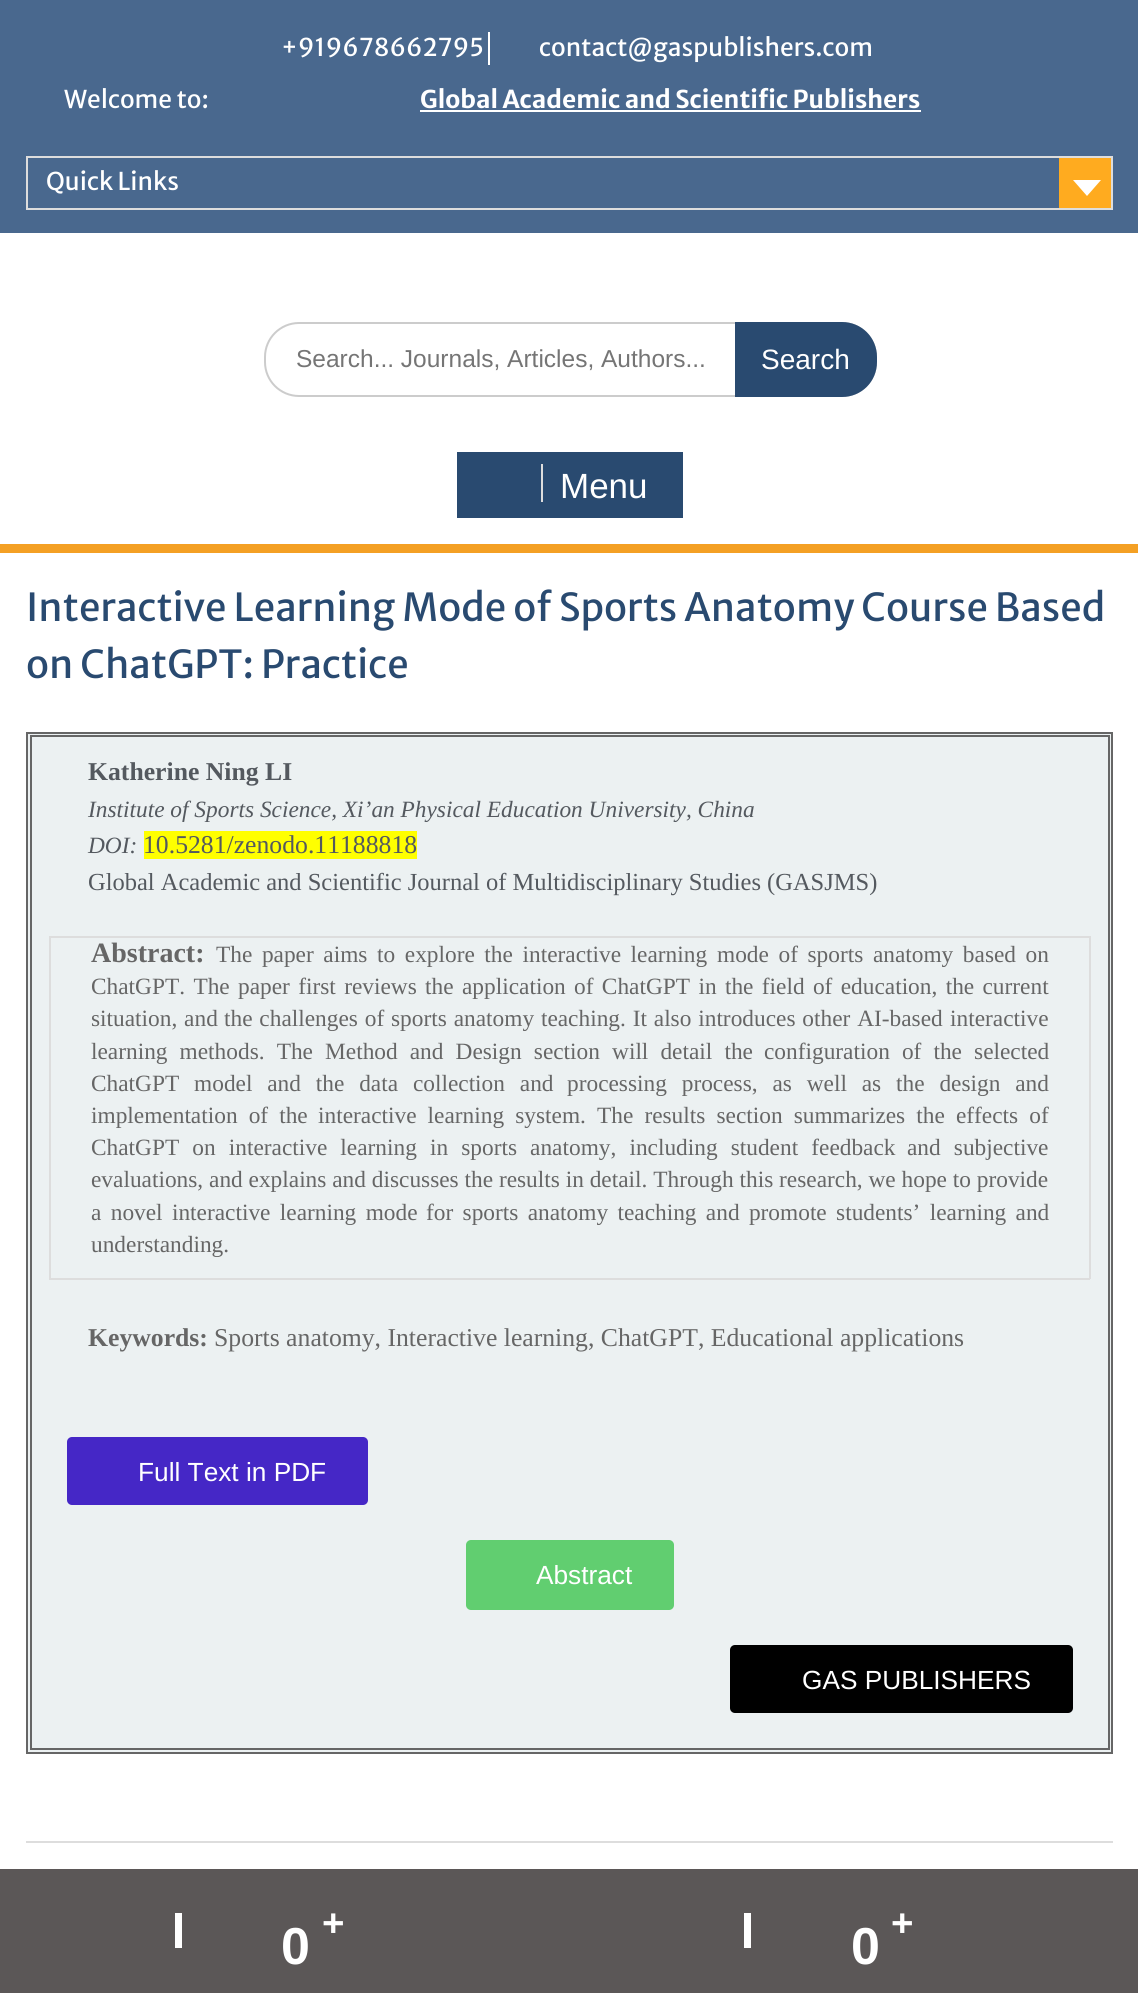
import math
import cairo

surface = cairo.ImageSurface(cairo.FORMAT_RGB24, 1138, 1993)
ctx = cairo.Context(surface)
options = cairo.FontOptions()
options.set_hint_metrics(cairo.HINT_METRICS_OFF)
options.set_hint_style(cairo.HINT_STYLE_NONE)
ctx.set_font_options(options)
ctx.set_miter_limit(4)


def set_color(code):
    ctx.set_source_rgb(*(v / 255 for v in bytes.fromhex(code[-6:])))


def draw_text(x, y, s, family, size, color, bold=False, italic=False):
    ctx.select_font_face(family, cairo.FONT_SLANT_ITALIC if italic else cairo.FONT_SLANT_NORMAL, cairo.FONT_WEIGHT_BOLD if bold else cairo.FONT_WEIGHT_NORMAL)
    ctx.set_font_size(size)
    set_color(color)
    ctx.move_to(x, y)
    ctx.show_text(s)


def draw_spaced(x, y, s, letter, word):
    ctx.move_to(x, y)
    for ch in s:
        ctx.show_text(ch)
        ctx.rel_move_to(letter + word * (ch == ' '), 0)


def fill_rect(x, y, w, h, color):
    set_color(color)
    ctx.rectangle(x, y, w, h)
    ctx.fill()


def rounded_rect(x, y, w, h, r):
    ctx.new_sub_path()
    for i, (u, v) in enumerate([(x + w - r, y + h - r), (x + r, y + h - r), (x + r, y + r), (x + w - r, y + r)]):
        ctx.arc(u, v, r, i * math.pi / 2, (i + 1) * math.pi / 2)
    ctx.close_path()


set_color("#ffffff")
ctx.paint()
fill_rect(0, 0, 1138, 233, "#49688e")
draw_text(281, 56, "+919678662795", "Merriweather Sans", 24.5, "#ffffff")
fill_rect(488, 32, 2, 33, "#ffffff")
draw_text(539, 56, "contact@gaspublishers.com", "Merriweather Sans", 24.5, "#ffffff")
draw_text(64, 108, "Welcome to:", "Merriweather Sans", 24.5, "#ffffff")
draw_text(420, 108, "Global Academic and Scientific Publishers", "Merriweather Sans", 24.5, "#ffffff", bold=True)
fill_rect(420, 110, 501, 2, "#ffffff")
ctx.rectangle(27, 157, 1085, 52)
set_color("#dddddd")
ctx.stroke()
draw_text(46, 190, "Quick Links", "Merriweather Sans", 24.5, "#ffffff")
fill_rect(1059, 158, 52, 50, "#ffab1f")
set_color("#ffffff")
ctx.new_path()
ctx.move_to(1073, 180)
ctx.line_to(1101, 180)
ctx.line_to(1087, 196)
ctx.close_path()
ctx.fill()
rounded_rect(265, 323, 611, 73, 34)
set_color("#cccccc")
ctx.stroke()
draw_text(296, 367, "Search... Journals, Articles, Authors...", "Liberation Sans", 24.5, "#757575")
set_color("#294a70")
ctx.new_path()
ctx.move_to(735, 322)
ctx.line_to(842, 322)
ctx.curve_to(861.5, 322, 877, 337.5, 877, 357)
ctx.line_to(877, 362)
ctx.curve_to(877, 381.5, 861.5, 397, 842, 397)
ctx.line_to(735, 397)
ctx.close_path()
ctx.fill()
draw_text(761, 369, "Search", "Liberation Sans", 28, "#ffffff")
fill_rect(0, 544, 1138, 9, "#f4a024")
fill_rect(457, 452, 226, 66, "#294a70")
fill_rect(541, 464, 2, 38, "#dddddd")
draw_text(560, 498, "Menu", "Liberation Sans", 35, "#ffffff")
fill_rect(26, 1841, 1087, 2, "#dddddd")
draw_text(26, 621, "Interactive Learning Mode of Sports Anatomy Course Based", "Merriweather Sans", 38.5, "#294a70")
draw_text(26, 678, "on ChatGPT: Practice", "Merriweather Sans", 38.5, "#294a70")
set_color("#ecf1f2")
ctx.rectangle(27, 733, 1085, 1020)
ctx.fill_preserve()
set_color("#666666")
ctx.stroke()
ctx.rectangle(31, 736, 1078, 1013)
ctx.stroke()
draw_text(88, 780, "Katherine Ning LI", "Liberation Serif", 25.7, "#54595f", bold=True)
draw_text(88, 817, "Institute of Sports Science, Xi’an Physical Education University, China", "Liberation Serif", 23.35, "#54595f", italic=True)
draw_text(88, 853, "DOI:", "Liberation Serif", 23.35, "#54595f", italic=True)
fill_rect(144, 831, 273, 28, "#ffff00")
draw_text(143, 853, "10.5281/zenodo.11188818", "Liberation Serif", 25.7, "#54595f")
draw_text(88, 890, "Global Academic and Scientific Journal of Multidisciplinary Studies (GASJMS)", "Liberation Serif", 24.5, "#54595f")
fill_rect(49, 936, 1041, 2, "#dddddd")
fill_rect(1089, 936, 2, 343, "#dddddd")
fill_rect(49, 1278, 1041, 2, "#dddddd")
fill_rect(49, 936, 2, 343, "#dddddd")
draw_text(91, 962, "Abstract:", "Liberation Serif", 28, "#666666", bold=True)
ctx.select_font_face("Liberation Serif")
ctx.set_font_size(23.35)
draw_spaced(216, 962, "The paper aims to explore the interactive learning", 0, 3.75)
draw_spaced(717, 962, "mode of sports anatomy based on", 0, 3.75)
draw_spaced(91, 994, "ChatGPT. The paper first reviews the", 0, 2.5)
draw_spaced(462, 994, "application of ChatGPT in the field of education, the current", 0, 2.5)
draw_spaced(91, 1026, "situation, and", 0, 1)
draw_spaced(224, 1026, "the challenges of sports anatomy teaching. It also introduces other AI-based", 0, 1)
draw_text(950, 1026, "interactive", "Liberation Serif", 23.35, "#666666")
draw_spaced(91, 1059, "learning methods. The Method and Design section will detail the", 0, 6.25)
draw_spaced(764, 1059, "configuration of the selected", 0, 6.25)
draw_spaced(91, 1091, "ChatGPT model and the data collection and", 0, 9)
draw_spaced(567, 1091, "processing process, as well as the design and", 0, 9)
draw_spaced(91, 1123, "implementation of the", 0, 5.25)
draw_spaced(318, 1123, "interactive learning system. The results section summarizes the effects of", 0, 5.25)
draw_spaced(91, 1155, "ChatGPT on interactive learning in sports anatomy, including student feedback", 0, 7.25)
draw_spaced(907, 1155, "and subjective", 0, 7.25)
draw_text(91, 1187, "evaluations, and explains and discusses the results in detail. Through this research, we hope to provide", "Liberation Serif", 23.35, "#666666")
draw_spaced(91, 1220, "a novel interactive learning mode", 0, 3.5)
draw_spaced(426, 1220, "for sports anatomy teaching and promote students’ learning and", 0, 3.5)
draw_text(91, 1252, "understanding.", "Liberation Serif", 23.35, "#666666")
draw_text(88, 1346, "Keywords:", "Liberation Serif", 25.7, "#666666", bold=True)
draw_text(214, 1346, "Sports anatomy, Interactive learning, ChatGPT, Educational applications", "Liberation Serif", 25.7, "#666666")
set_color("#4527c6")
rounded_rect(67, 1437, 301, 68, 5)
ctx.fill()
draw_text(138, 1481, "Full Text in PDF", "Liberation Sans", 26.25, "#ffffff")
set_color("#61ce70")
rounded_rect(466, 1540, 208, 70, 5)
ctx.fill()
draw_text(536, 1584, "Abstract", "Liberation Sans", 26.25, "#ffffff")
set_color("#000000")
rounded_rect(730, 1645, 343, 68, 5)
ctx.fill()
draw_text(802, 1689, "GAS PUBLISHERS", "Liberation Sans", 26.25, "#ffffff")
fill_rect(0, 1869, 1138, 124, "#5b5757")
fill_rect(175, 1913, 7, 35, "#ffffff")
draw_text(322, 1936, "+", "Liberation Sans", 38.5, "#ffffff", bold=True)
draw_text(281, 1964, "0", "Liberation Sans", 52, "#ffffff", bold=True)
fill_rect(744, 1913, 7, 35, "#ffffff")
draw_text(891, 1936, "+", "Liberation Sans", 38.5, "#ffffff", bold=True)
draw_text(851, 1964, "0", "Liberation Sans", 52, "#ffffff", bold=True)
surface.write_to_png("output.png")
